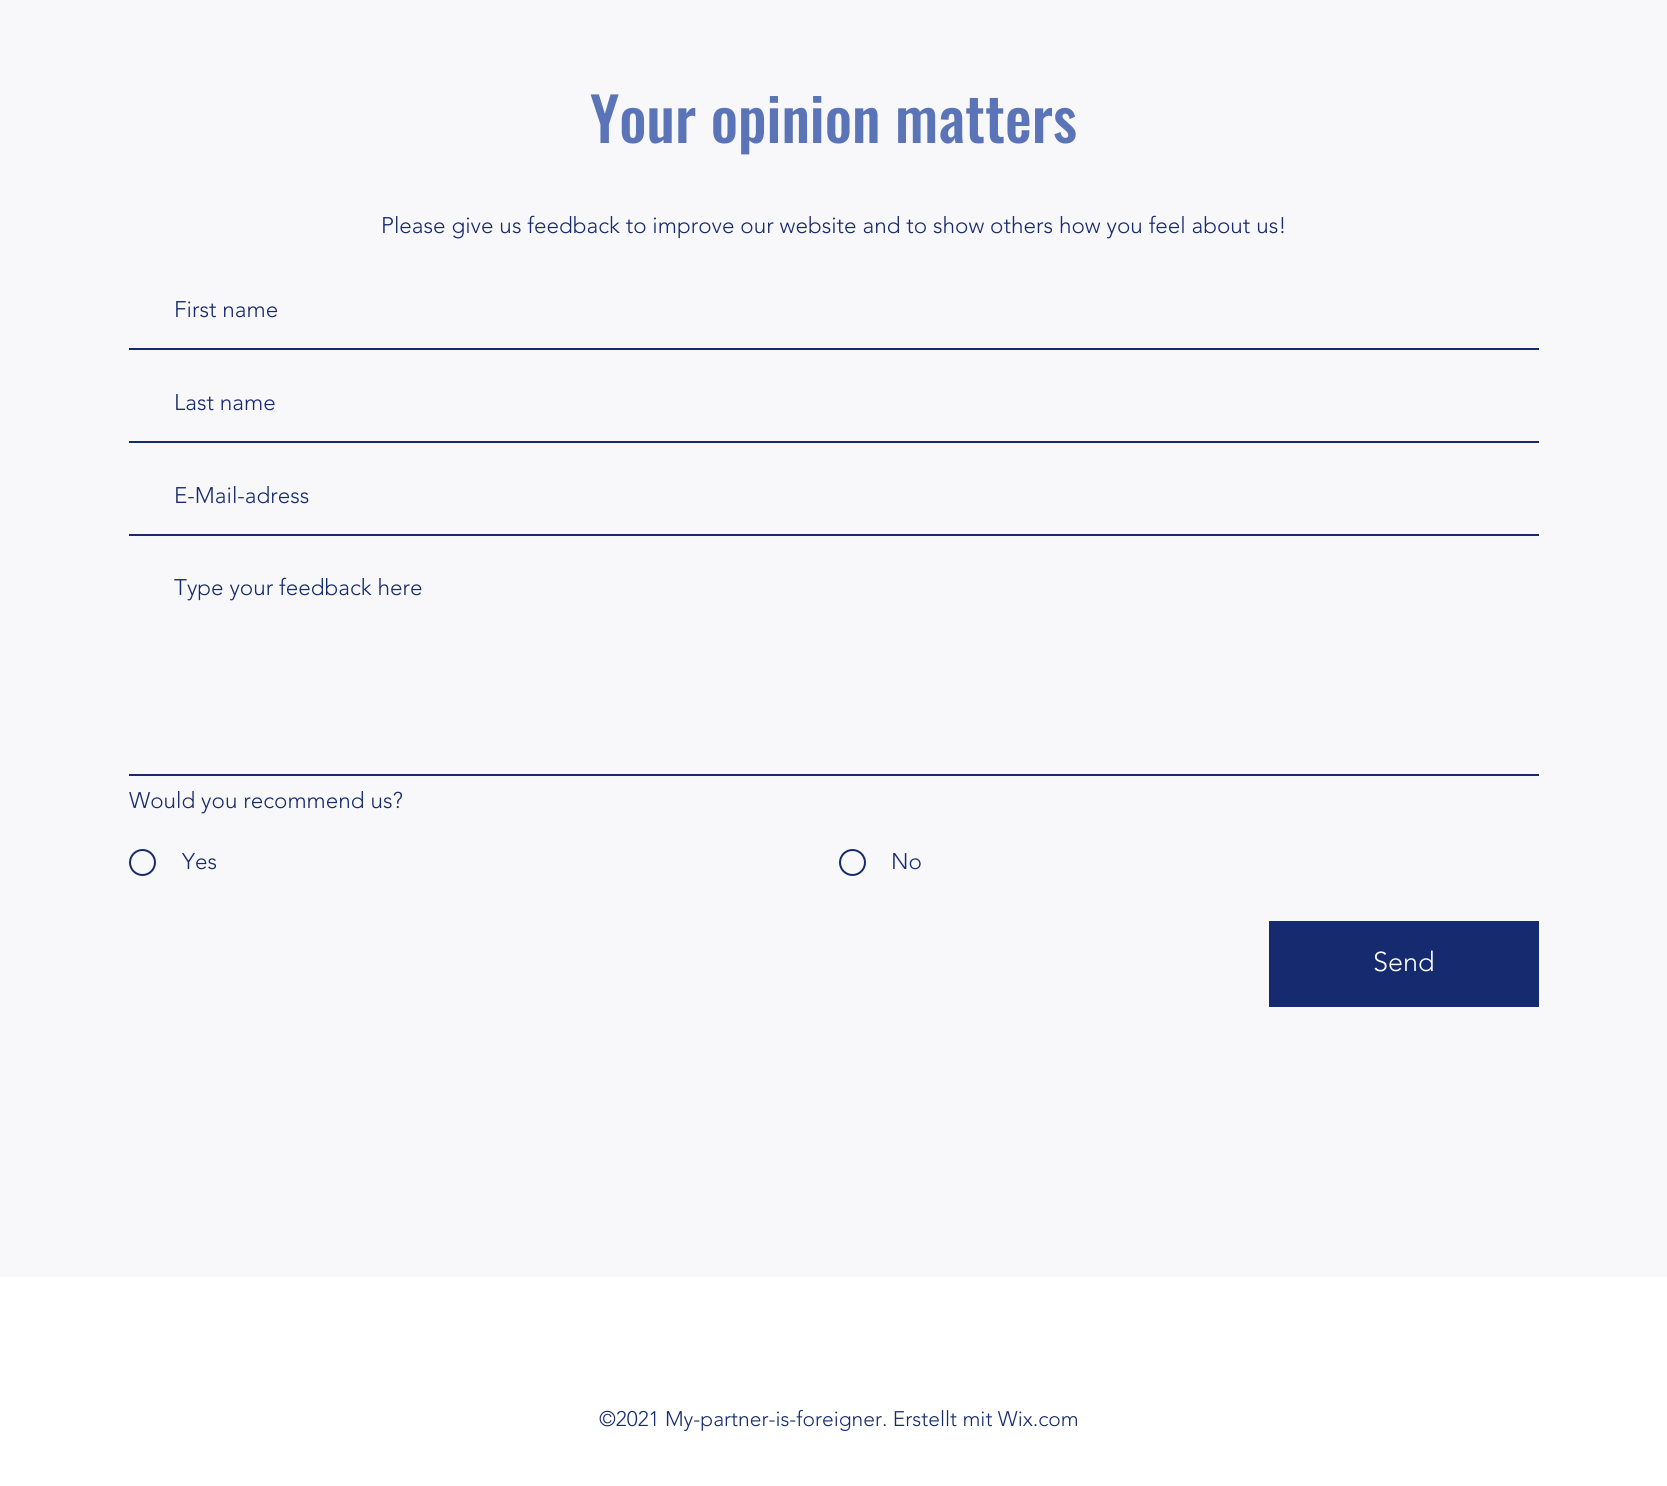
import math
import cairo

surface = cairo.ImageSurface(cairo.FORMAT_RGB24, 1667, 1486)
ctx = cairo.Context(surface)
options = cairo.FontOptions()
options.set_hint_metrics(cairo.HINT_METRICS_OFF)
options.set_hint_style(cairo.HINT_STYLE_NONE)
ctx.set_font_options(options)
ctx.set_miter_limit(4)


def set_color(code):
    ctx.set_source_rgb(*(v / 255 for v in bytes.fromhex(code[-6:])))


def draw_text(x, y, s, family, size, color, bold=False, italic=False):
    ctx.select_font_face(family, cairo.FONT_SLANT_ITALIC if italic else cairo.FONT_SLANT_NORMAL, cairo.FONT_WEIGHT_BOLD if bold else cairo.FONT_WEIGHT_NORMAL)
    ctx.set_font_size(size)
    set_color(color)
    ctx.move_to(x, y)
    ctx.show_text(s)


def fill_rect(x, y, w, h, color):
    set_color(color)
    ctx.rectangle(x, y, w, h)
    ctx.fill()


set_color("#ffffff")
ctx.paint()
fill_rect(0, 0, 1667, 1277, "#f8f7f9")
draw_text(590, 143, "Your opinion matters", "Oswald Medium", 60, "#5a74b7")
draw_text(381, 233, "Please give us feedback to improve our website and to show others how you feel about us!", "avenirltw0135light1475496 Light", 22.5, "#162b6f")
fill_rect(129, 348, 1410, 2, "#162b6f")
draw_text(174, 317, "First name", "avenirltw0135light1475496 Light", 22.5, "#162b6f")
fill_rect(129, 441, 1410, 2, "#162b6f")
draw_text(174, 410, "Last name", "avenirltw0135light1475496 Light", 22.5, "#162b6f")
fill_rect(129, 534, 1410, 2, "#162b6f")
draw_text(174, 503, "E-Mail-adress", "avenirltw0135light1475496 Light", 22.5, "#162b6f")
fill_rect(129, 774, 1410, 2, "#162b6f")
draw_text(174, 595, "Type your feedback here", "avenirltw0135light1475496 Light", 22.5, "#162b6f")
draw_text(129, 808, "Would you recommend us?", "avenirltw0135light1475496 Light", 22.5, "#162b6f")
ctx.new_path()
ctx.arc(142.5, 862.5, 12.5, 0, 2 * math.pi)
ctx.stroke()
draw_text(182, 869, "Yes", "avenirltw0135light1475496 Light", 22.5, "#162b6f")
ctx.new_path()
ctx.arc(852.5, 862.5, 12.5, 0, 2 * math.pi)
ctx.stroke()
draw_text(891, 869, "No", "avenirltw0135light1475496 Light", 22.5, "#162b6f")
fill_rect(1269, 921, 270, 86, "#162b6f")
draw_text(1373, 971, "Send", "avenirltw0135light1475496 Light", 27, "#ffffff")
draw_text(599, 1426, "©2021 My-partner-is-foreigner. Erstellt mit Wix.com", "avenirltw0135light1475496 Light", 21, "#162b6f")
surface.write_to_png("output.png")
